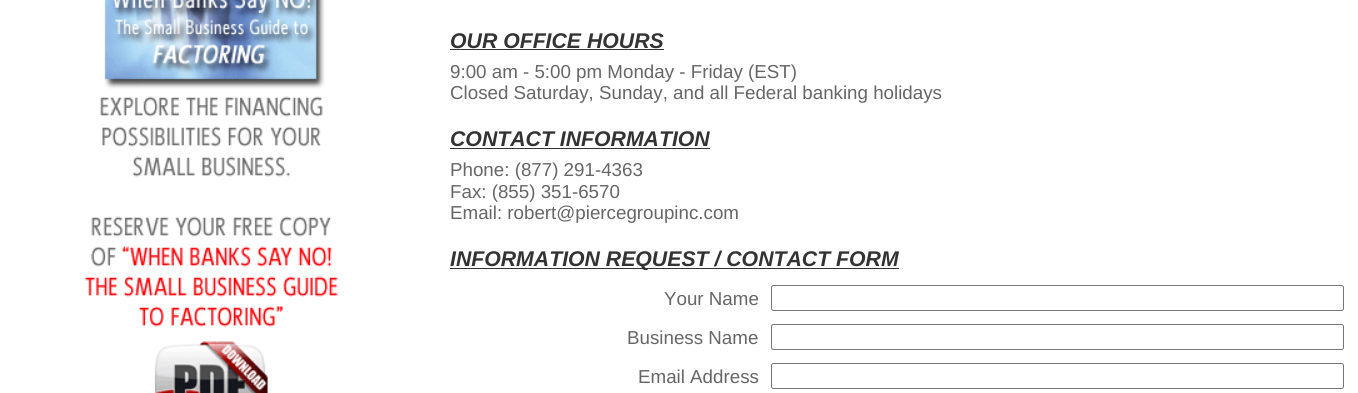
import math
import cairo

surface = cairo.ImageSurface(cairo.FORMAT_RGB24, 1358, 393)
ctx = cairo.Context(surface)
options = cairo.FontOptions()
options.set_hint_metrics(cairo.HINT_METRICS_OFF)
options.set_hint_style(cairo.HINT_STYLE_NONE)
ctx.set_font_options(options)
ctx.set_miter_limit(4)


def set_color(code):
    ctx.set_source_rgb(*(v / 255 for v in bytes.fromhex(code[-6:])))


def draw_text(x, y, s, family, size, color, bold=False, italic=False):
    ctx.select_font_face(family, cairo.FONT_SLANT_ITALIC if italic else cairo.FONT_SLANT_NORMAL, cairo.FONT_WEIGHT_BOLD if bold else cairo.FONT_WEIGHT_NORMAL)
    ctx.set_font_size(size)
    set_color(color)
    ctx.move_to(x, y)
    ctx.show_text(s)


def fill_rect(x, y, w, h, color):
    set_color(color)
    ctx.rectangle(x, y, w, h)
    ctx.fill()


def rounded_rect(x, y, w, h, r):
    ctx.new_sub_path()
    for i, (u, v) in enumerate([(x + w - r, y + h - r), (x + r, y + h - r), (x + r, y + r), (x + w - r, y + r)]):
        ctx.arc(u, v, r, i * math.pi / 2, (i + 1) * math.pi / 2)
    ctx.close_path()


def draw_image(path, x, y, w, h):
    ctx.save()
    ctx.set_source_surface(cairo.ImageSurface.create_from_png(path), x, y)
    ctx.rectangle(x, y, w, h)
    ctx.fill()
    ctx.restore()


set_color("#ffffff")
ctx.paint()
draw_image("assets/img1.png", 84, 0, 254, 393)
draw_text(450, 48, "OUR OFFICE HOURS", "Liberation Sans", 21.25, "#333333", bold=True, italic=True)
fill_rect(450, 49, 214, 1, "#333333")
draw_text(450, 78, "9:00 am - 5:00 pm Monday - Friday (EST)", "Liberation Sans", 18.75, "#666666")
draw_text(450, 99, "Closed Saturday, Sunday, and all Federal banking holidays", "Liberation Sans", 18.75, "#666666")
draw_text(450, 146, "CONTACT INFORMATION", "Liberation Sans", 21.25, "#333333", bold=True, italic=True)
fill_rect(450, 148, 260, 1, "#333333")
draw_text(450, 176, "Phone: (877) 291-4363", "Liberation Sans", 18.75, "#666666")
draw_text(450, 198, "Fax: (855) 351-6570", "Liberation Sans", 18.75, "#666666")
draw_text(450, 219, "Email: robert@piercegroupinc.com", "Liberation Sans", 18.75, "#666666")
fill_rect(450, 268, 449, 1, "#333333")
draw_text(450, 266, "INFORMATION REQUEST / CONTACT FORM", "Liberation Sans", 21.25, "#333333", bold=True, italic=True)
draw_text(664, 305, "Your Name", "Liberation Sans", 18.75, "#666666")
rounded_rect(771.5, 285.5, 572, 25, 2)
set_color("#767676")
ctx.set_line_width(1)
ctx.stroke()
draw_text(627, 344, "Business Name", "Liberation Sans", 18.75, "#666666")
rounded_rect(771.5, 324.5, 572, 25, 2)
set_color("#767676")
ctx.stroke()
draw_text(638, 383, "Email Address", "Liberation Sans", 18.75, "#666666")
rounded_rect(771.5, 363.5, 572, 25, 2)
set_color("#767676")
ctx.stroke()
surface.write_to_png("output.png")
